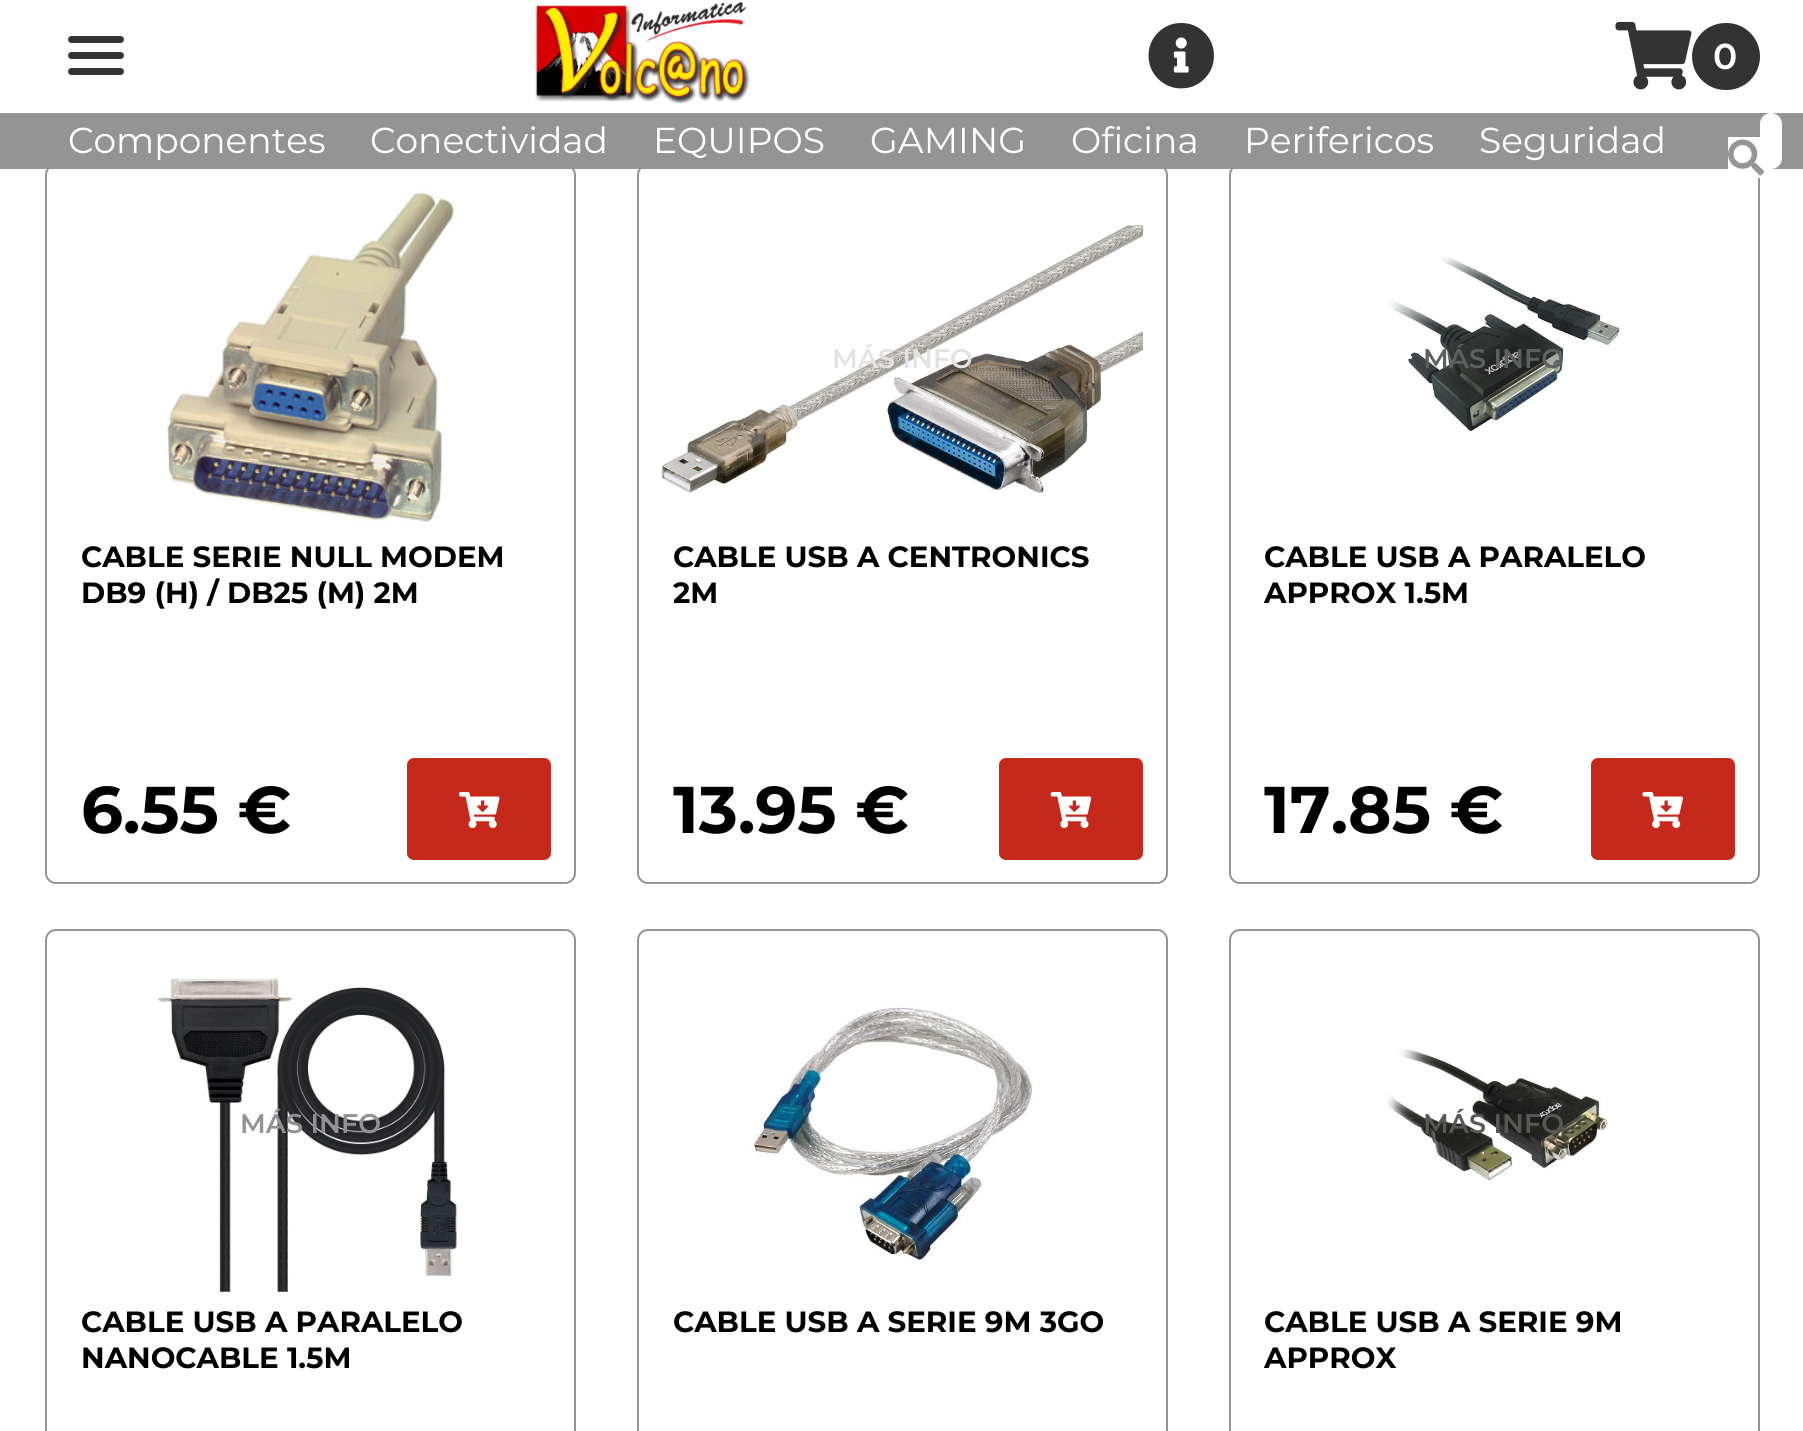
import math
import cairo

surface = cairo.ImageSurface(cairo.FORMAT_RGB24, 1803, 1431)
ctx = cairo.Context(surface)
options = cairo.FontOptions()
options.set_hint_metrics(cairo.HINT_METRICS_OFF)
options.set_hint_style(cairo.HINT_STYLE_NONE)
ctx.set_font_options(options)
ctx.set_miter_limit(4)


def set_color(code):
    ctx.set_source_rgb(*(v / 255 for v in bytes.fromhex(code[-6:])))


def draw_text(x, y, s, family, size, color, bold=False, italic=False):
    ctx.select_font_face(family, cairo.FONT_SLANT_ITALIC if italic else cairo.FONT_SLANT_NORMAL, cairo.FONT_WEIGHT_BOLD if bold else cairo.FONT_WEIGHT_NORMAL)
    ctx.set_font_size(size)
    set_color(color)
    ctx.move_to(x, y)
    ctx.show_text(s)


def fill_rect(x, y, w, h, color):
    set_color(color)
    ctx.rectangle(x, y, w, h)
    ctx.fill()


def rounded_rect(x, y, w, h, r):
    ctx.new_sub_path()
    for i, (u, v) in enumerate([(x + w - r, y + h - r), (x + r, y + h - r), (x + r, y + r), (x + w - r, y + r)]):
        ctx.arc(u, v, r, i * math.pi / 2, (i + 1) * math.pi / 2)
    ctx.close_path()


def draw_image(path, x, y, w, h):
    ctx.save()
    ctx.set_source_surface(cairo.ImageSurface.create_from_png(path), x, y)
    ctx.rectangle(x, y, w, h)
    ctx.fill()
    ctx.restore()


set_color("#ffffff")
ctx.paint()
set_color("#333333")
rounded_rect(68, 52, 56, 7, 3.5)
ctx.fill()
rounded_rect(68, 36, 56, 7, 3.5)
ctx.fill()
rounded_rect(68, 68, 56, 7, 3.5)
ctx.fill()
draw_image("assets/img1.png", 535, 1, 215, 103)
draw_image("assets/img2.png", 1148, 23, 66, 66)
draw_image("assets/img3.png", 1615, 21, 77, 69)
rounded_rect(1692, 23, 68, 67, 33.5)
ctx.fill()
draw_text(1713, 69, "0", "Montserrat SemiBold", 36, "#ffffff")
rounded_rect(46, 165, 529, 718, 10)
set_color("#949494")
ctx.stroke()
rounded_rect(638, 165, 529, 718, 10)
ctx.stroke()
rounded_rect(1230, 165, 529, 718, 10)
ctx.stroke()
fill_rect(0, 113, 1803, 56, "#949494")
draw_text(68, 153, "Componentes", "Montserrat", 36, "#ffffff")
draw_text(370, 153, "Conectividad", "Montserrat", 36, "#ffffff")
draw_text(653, 153, "EQUIPOS", "Montserrat", 36, "#ffffff")
draw_text(870, 153, "GAMING", "Montserrat", 36, "#ffffff")
draw_text(1071, 153, "Oficina", "Montserrat", 36, "#ffffff")
draw_text(1244, 153, "Perifericos", "Montserrat", 36, "#ffffff")
draw_text(1479, 153, "Seguridad", "Montserrat", 36, "#ffffff")
rounded_rect(1760, 113, 22, 56, 11)
ctx.fill()
fill_rect(1728, 137, 43, 41, "#ffffff")
draw_image("assets/img4.png", 1728, 139, 36, 37)
draw_image("assets/img5.png", 162, 189, 294, 334)
draw_text(81, 567, "CABLE SERIE NULL MODEM", "Montserrat", 29.25, "#000000", bold=True)
draw_text(81, 603, "DB9 (H) / DB25 (M) 2M", "Montserrat", 29.25, "#000000", bold=True)
draw_text(81, 833, "6.55 €", "Montserrat", 66, "#000000", bold=True)
set_color("#c4291c")
rounded_rect(407, 758, 144, 102, 7)
ctx.fill()
draw_image("assets/img6.png", 459, 792, 41, 36)
draw_image("assets/img7.png", 661, 225, 482, 268)
draw_text(832, 368, "MÁS INFO", "Montserrat SemiBold", 27, "#e4e3e2")
draw_text(673, 567, "CABLE USB A CENTRONICS", "Montserrat", 29.25, "#000000", bold=True)
draw_text(673, 603, "2M", "Montserrat", 29.25, "#000000", bold=True)
draw_text(673, 833, "13.95 €", "Montserrat", 66, "#000000", bold=True)
set_color("#c4291c")
rounded_rect(999, 758, 144, 102, 7)
ctx.fill()
draw_image("assets/img8.png", 1050, 792, 42, 36)
draw_image("assets/img9.png", 1388, 256, 232, 176)
draw_text(1423, 368, "MÁS INFO", "Montserrat SemiBold", 27, "#5e605f")
draw_text(1264, 567, "CABLE USB A PARALELO", "Montserrat", 29.25, "#000000", bold=True)
draw_text(1264, 603, "APPROX 1.5M", "Montserrat", 29.25, "#000000", bold=True)
draw_text(1264, 833, "17.85 €", "Montserrat", 66, "#000000", bold=True)
set_color("#c4291c")
rounded_rect(1591, 758, 144, 102, 7)
ctx.fill()
draw_image("assets/img10.png", 1642, 792, 41, 36)
rounded_rect(46, 930, 529, 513, 10)
set_color("#949494")
ctx.stroke()
draw_image("assets/img11.png", 157, 976, 302, 316)
draw_text(240, 1133, "MÁS INFO", "Montserrat SemiBold", 27, "#929294")
draw_text(81, 1332, "CABLE USB A PARALELO", "Montserrat", 29.25, "#000000", bold=True)
draw_text(81, 1368, "NANOCABLE 1.5M", "Montserrat", 29.25, "#000000", bold=True)
rounded_rect(638, 930, 529, 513, 10)
set_color("#949494")
ctx.stroke()
draw_image("assets/img12.png", 749, 1005, 285, 260)
draw_text(673, 1332, "CABLE USB A SERIE 9M 3GO", "Montserrat", 29.25, "#000000", bold=True)
rounded_rect(1230, 930, 529, 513, 10)
set_color("#949494")
ctx.stroke()
draw_image("assets/img13.png", 1386, 1048, 223, 133)
draw_text(1423, 1133, "MÁS INFO", "Montserrat SemiBold", 27, "#575755")
draw_text(1264, 1332, "CABLE USB A SERIE 9M", "Montserrat", 29.25, "#000000", bold=True)
draw_text(1264, 1368, "APPROX", "Montserrat", 29.25, "#000000", bold=True)
surface.write_to_png("output.png")
